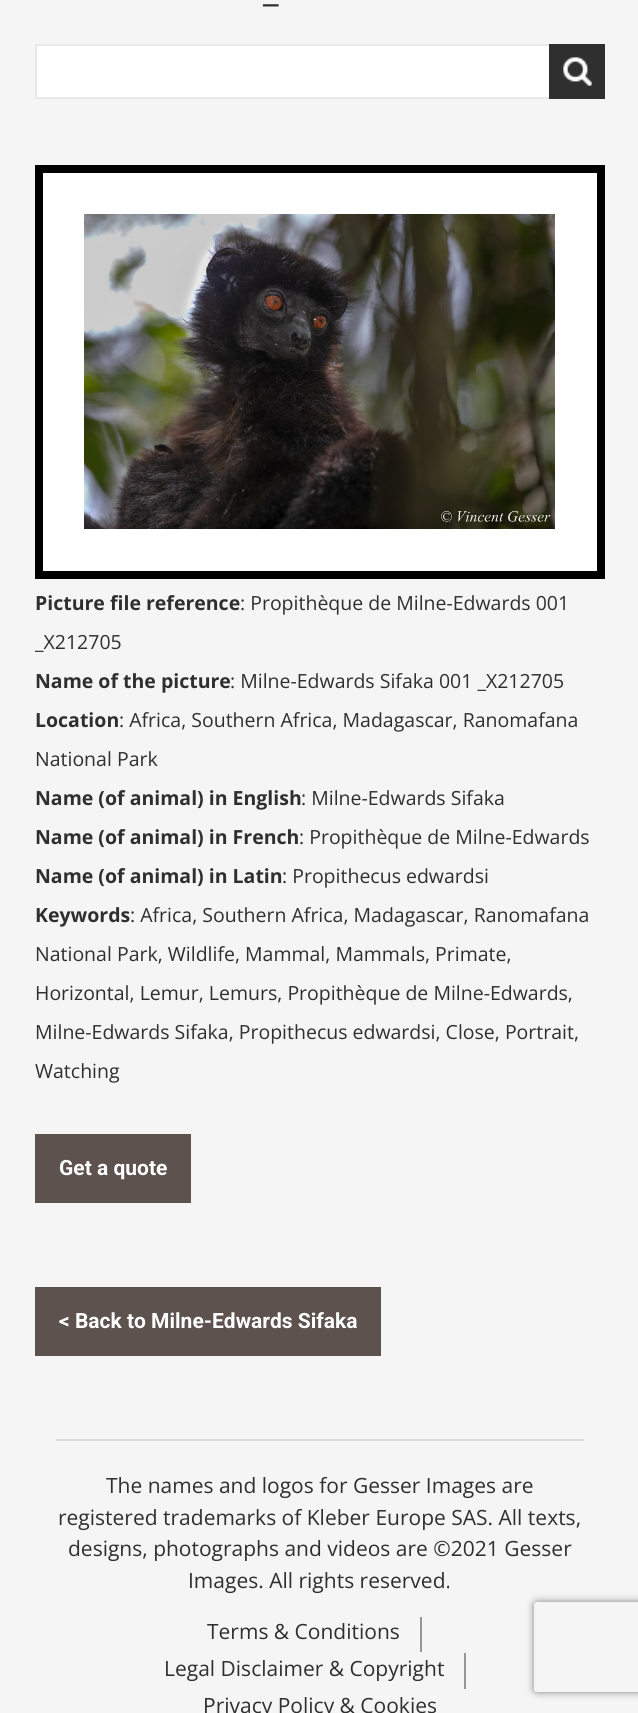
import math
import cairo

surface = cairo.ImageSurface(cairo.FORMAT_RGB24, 638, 1713)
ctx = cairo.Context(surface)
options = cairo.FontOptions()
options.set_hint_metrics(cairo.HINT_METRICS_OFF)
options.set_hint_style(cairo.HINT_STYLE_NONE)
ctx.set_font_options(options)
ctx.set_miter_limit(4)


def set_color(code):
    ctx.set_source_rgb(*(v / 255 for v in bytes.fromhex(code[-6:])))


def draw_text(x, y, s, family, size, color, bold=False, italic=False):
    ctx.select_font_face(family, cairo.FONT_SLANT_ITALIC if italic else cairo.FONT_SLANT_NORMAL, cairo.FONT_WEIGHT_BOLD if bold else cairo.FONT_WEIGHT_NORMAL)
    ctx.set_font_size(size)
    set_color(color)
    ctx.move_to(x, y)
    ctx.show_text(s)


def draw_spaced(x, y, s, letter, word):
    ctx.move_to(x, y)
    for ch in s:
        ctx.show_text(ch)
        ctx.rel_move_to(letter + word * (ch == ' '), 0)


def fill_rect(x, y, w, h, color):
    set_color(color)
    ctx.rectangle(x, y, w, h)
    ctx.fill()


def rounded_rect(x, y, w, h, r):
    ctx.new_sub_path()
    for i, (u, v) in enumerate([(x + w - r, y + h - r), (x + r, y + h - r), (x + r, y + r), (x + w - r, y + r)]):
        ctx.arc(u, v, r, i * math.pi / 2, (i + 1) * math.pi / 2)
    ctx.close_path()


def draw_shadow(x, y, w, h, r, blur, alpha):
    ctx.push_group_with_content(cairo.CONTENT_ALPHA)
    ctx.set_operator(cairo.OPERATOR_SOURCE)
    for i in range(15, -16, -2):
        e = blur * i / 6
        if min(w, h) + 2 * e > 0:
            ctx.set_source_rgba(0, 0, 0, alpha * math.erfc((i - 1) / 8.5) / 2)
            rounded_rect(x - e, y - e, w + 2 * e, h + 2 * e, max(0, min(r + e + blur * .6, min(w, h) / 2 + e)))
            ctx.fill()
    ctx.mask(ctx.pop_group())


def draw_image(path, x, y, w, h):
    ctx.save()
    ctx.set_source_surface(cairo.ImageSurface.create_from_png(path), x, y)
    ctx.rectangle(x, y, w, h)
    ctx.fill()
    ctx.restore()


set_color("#f5f5f5")
ctx.paint()
ctx.select_font_face("Open Sans Medium")
ctx.set_font_size(36)
set_color("#2f2f2f")
draw_spaced(263, 1, "_", 6, 0)
fill_rect(37, 46, 512, 51, "#ffffff")
ctx.rectangle(36, 45, 568, 53)
set_color("#e8e8e8")
ctx.stroke()
fill_rect(549, 44, 56, 55, "#2f2f2f")
draw_image("assets/img1.png", 563, 57, 29, 29)
set_color("#ffffff")
ctx.rectangle(39, 169, 562, 406)
ctx.fill_preserve()
set_color("#000000")
ctx.set_line_width(8)
ctx.stroke()
draw_image("assets/img2.png", 84, 214, 471, 315)
draw_text(35, 610, "Picture file reference", "Open Sans", 19.5, "#2f2f2f", bold=True)
draw_text(240, 610, ": Propithèque de Milne-Edwards 001", "Open Sans", 19.5, "#2f2f2f")
draw_text(35, 649, "_X212705", "Open Sans", 19.5, "#2f2f2f")
draw_text(35, 688, "Name of the picture", "Open Sans", 19.5, "#2f2f2f", bold=True)
draw_text(230, 688, ": Milne-Edwards Sifaka 001 _X212705", "Open Sans", 19.5, "#2f2f2f")
draw_text(35, 727, "Location", "Open Sans", 19.5, "#2f2f2f", bold=True)
draw_text(119, 727, ": Africa, Southern Africa, Madagascar, Ranomafana", "Open Sans", 19.5, "#2f2f2f")
draw_text(35, 766, "National Park", "Open Sans", 19.5, "#2f2f2f")
draw_text(35, 805, "Name (of animal) in English", "Open Sans", 19.5, "#2f2f2f", bold=True)
draw_text(301, 805, ": Milne-Edwards Sifaka", "Open Sans", 19.5, "#2f2f2f")
draw_text(35, 844, "Name (of animal) in French", "Open Sans", 19.5, "#2f2f2f", bold=True)
draw_text(299, 844, ": Propithèque de Milne-Edwards", "Open Sans", 19.5, "#2f2f2f")
draw_text(35, 883, "Name (of animal) in Latin", "Open Sans", 19.5, "#2f2f2f", bold=True)
draw_text(282, 883, ": Propithecus edwardsi", "Open Sans", 19.5, "#2f2f2f")
draw_text(35, 922, "Keywords", "Open Sans", 19.5, "#2f2f2f", bold=True)
draw_text(130, 922, ": Africa, Southern Africa, Madagascar, Ranomafana", "Open Sans", 19.5, "#2f2f2f")
draw_text(35, 961, "National Park, Wildlife, Mammal, Mammals, Primate,", "Open Sans", 19.5, "#2f2f2f")
draw_text(35, 1000, "Horizontal, Lemur, Lemurs, Propithèque de Milne-Edwards,", "Open Sans", 19.5, "#2f2f2f")
draw_text(35, 1039, "Milne-Edwards Sifaka, Propithecus edwardsi, Close, Portrait,", "Open Sans", 19.5, "#2f2f2f")
draw_text(35, 1078, "Watching", "Open Sans", 19.5, "#2f2f2f")
fill_rect(35, 1134, 156, 69, "#5d524d")
draw_text(59, 1175, "Get a quote", "Roboto", 21, "#ffffff", bold=True)
fill_rect(35, 1287, 346, 69, "#5d524d")
draw_text(59, 1328, "< Back to Milne-Edwards Sifaka", "Roboto", 21, "#ffffff", bold=True)
fill_rect(56, 1439, 528, 2, "#dadada")
draw_text(106, 1493, "The names and logos for Gesser Images are", "Open Sans", 21, "#2f2f2f")
draw_text(58, 1525, "registered trademarks of Kleber Europe SAS. All texts,", "Open Sans", 21, "#2f2f2f")
draw_text(68, 1556, "designs, photographs and videos are ©2021 Gesser", "Open Sans", 21, "#2f2f2f")
draw_text(188, 1588, "Images. All rights reserved.", "Open Sans", 21, "#2f2f2f")
fill_rect(420, 1617, 2, 35, "#969696")
draw_text(207, 1639, "Terms & Conditions", "Open Sans", 21, "#2f2f2f")
fill_rect(464, 1653, 2, 36, "#969696")
draw_text(164, 1676, "Legal Disclaimer & Copyright", "Open Sans", 21, "#2f2f2f")
draw_text(203, 1713, "Privacy Policy & Cookies", "Open Sans", 21, "#2f2f2f")
ctx.save()
ctx.set_fill_rule(cairo.FILL_RULE_EVEN_ODD)
ctx.new_path()
ctx.move_to(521, 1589)
ctx.line_to(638, 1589)
ctx.line_to(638, 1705)
ctx.line_to(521, 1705)
ctx.close_path()
ctx.move_to(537, 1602)
ctx.line_to(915, 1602)
ctx.curve_to(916.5, 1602, 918, 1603.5, 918, 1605)
ctx.line_to(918, 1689)
ctx.curve_to(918, 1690.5, 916.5, 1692, 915, 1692)
ctx.line_to(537, 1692)
ctx.curve_to(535.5, 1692, 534, 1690.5, 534, 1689)
ctx.line_to(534, 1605)
ctx.curve_to(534, 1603.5, 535.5, 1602, 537, 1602)
ctx.close_path()
ctx.clip()
set_color("#808080")
draw_shadow(534, 1602, 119, 90, 3, 4, 1)
ctx.restore()
surface.write_to_png("output.png")
